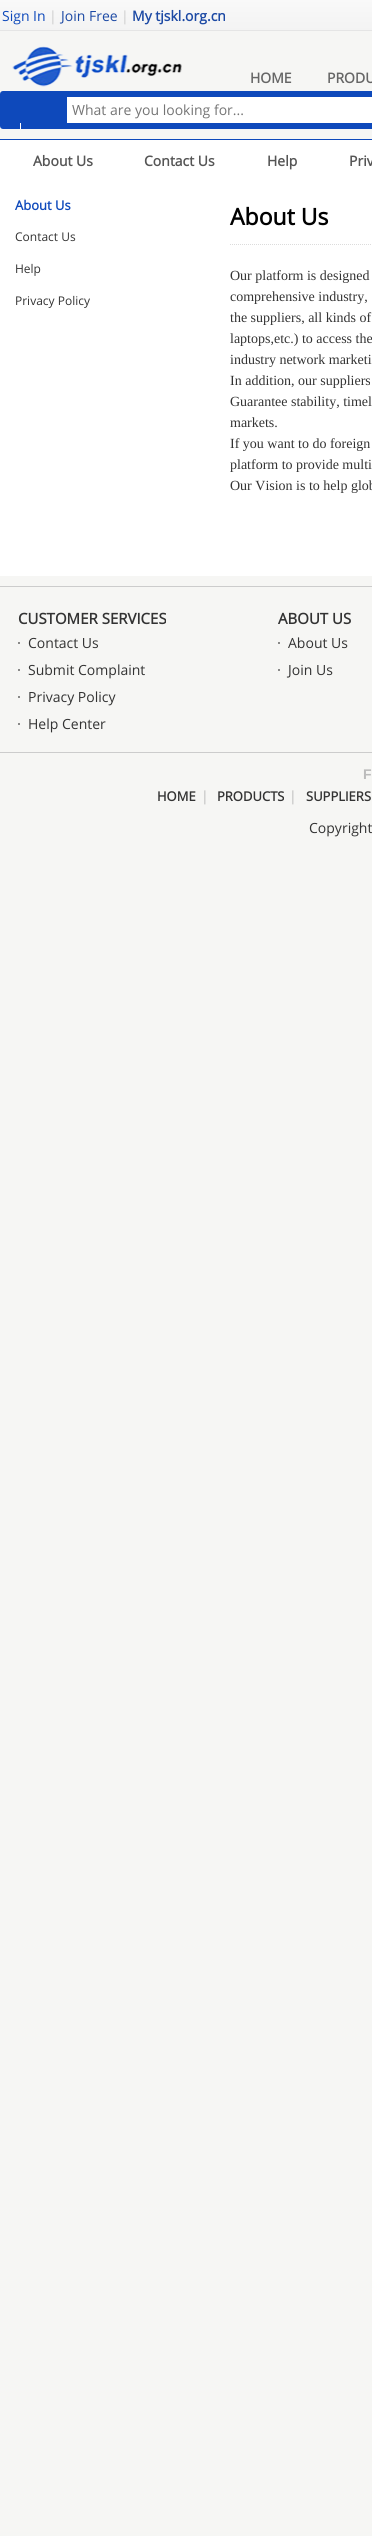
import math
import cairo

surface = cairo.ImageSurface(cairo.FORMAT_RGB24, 372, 2536)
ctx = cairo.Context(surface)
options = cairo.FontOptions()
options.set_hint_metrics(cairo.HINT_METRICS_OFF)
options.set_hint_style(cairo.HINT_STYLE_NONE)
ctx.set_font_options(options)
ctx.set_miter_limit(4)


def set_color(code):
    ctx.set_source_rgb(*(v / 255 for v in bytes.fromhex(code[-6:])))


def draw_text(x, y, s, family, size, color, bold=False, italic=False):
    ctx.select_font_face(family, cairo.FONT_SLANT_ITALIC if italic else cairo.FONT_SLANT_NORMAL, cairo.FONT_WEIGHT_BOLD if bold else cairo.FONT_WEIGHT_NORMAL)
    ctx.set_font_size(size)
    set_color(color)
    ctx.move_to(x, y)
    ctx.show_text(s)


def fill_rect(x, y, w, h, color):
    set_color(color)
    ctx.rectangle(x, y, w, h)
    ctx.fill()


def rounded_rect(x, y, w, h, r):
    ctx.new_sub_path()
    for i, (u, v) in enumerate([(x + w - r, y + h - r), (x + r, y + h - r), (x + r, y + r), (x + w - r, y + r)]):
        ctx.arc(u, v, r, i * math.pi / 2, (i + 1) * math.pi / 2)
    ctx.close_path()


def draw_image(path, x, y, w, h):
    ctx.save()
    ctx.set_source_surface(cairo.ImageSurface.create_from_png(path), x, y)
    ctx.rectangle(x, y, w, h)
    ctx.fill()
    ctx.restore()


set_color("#f6f6f4")
ctx.paint()
gradient = cairo.LinearGradient(186, 0, 186, 30)
gradient.add_color_stop_rgba(0, 0.976, 0.976, 0.976, 1)
gradient.add_color_stop_rgba(1, 0.953, 0.953, 0.953, 1)
ctx.set_source(gradient)
ctx.rectangle(0, 0, 372, 30)
ctx.fill()
fill_rect(0, 30, 372, 1, "#e5e5e5")
draw_text(2, 21, "Sign In", "Open Sans", 14, "#0e49bb")
draw_text(49, 21, "|", "Open Sans", 14, "#cccccc")
draw_text(61, 21, "Join Free", "Open Sans", 14, "#1c49a4")
draw_text(121, 21, "|", "Open Sans", 14, "#cccccc")
draw_text(132, 21, "My tjskl.org.cn", "Open Sans", 14, "#1c49a4", bold=True)
draw_image("assets/img1.png", 12, 46, 170, 41)
draw_text(250, 83, "HOME", "Open Sans", 14, "#666666", bold=True)
draw_text(327, 83, "PRODU", "Open Sans", 14, "#666666", bold=True)
set_color("#0e49bb")
rounded_rect(0, 91, 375, 38, 3)
ctx.fill()
fill_rect(67, 97, 305, 26, "#ffffff")
draw_text(72, 115, "What are you looking for...", "Open Sans", 14, "#757575")
fill_rect(20, 123, 1, 6, "#ffffff")
fill_rect(0, 140, 372, 436, "#ffffff")
fill_rect(0, 139, 372, 1, "#0e49bb")
draw_text(33, 166, "About Us", "Open Sans", 14, "#555555", bold=True)
draw_text(144, 166, "Contact Us", "Open Sans", 14, "#555555", bold=True)
draw_text(267, 166, "Help", "Open Sans", 14, "#555555", bold=True)
draw_text(349, 166, "Priv", "Open Sans", 14, "#555555", bold=True)
draw_text(15, 210, "About Us", "Open Sans", 13, "#0e49bb", bold=True)
draw_text(15, 241, "Contact Us", "Open Sans", 12, "#333333")
draw_text(15, 273, "Help", "Open Sans", 12, "#333333")
draw_text(15, 305, "Privacy Policy", "Open Sans", 12, "#333333")
ctx.new_path()
ctx.move_to(230, 244.5)
ctx.line_to(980, 244.5)
set_color("#dcdcdc")
ctx.set_line_width(1)
ctx.set_dash([1, 1])
ctx.stroke()
draw_text(230, 225, "About Us", "Open Sans", 23, "#000000", bold=True)
draw_text(230, 280, "Our platform is designed", "Liberation Serif", 14, "#333333")
draw_text(230, 301, "comprehensive industry,", "Liberation Serif", 14, "#333333")
draw_text(230, 322, "the suppliers, all kinds of", "Liberation Serif", 14, "#333333")
draw_text(230, 343, "laptops,etc.) to access the", "Liberation Serif", 14, "#333333")
draw_text(230, 364, "industry network marketi", "Liberation Serif", 14, "#333333")
draw_text(230, 385, "In addition, our suppliers", "Liberation Serif", 14, "#333333")
draw_text(230, 406, "Guarantee stability, timel", "Liberation Serif", 14, "#333333")
draw_text(230, 427, "markets.", "Liberation Serif", 14, "#333333")
draw_text(230, 448, "If you want to do foreign", "Liberation Serif", 14, "#333333")
draw_text(230, 469, "platform to provide multi", "Liberation Serif", 14, "#333333")
draw_text(230, 490, "Our Vision is to help glob", "Liberation Serif", 14, "#333333")
fill_rect(0, 586, 372, 1, "#cccccc")
draw_text(18, 624, "CUSTOMER SERVICES", "Open Sans", 15, "#333333", bold=True)
set_color("#666666")
ctx.new_path()
ctx.arc(19, 643, 1, 0, 2 * math.pi)
ctx.fill()
draw_text(28, 648, "Contact Us", "Open Sans", 14, "#333333")
set_color("#666666")
ctx.new_path()
ctx.arc(19, 670, 1, 0, 2 * math.pi)
ctx.fill()
draw_text(28, 675, "Submit Complaint", "Open Sans", 14, "#333333")
set_color("#666666")
ctx.new_path()
ctx.arc(19, 697, 1, 0, 2 * math.pi)
ctx.fill()
draw_text(28, 702, "Privacy Policy", "Open Sans", 14, "#333333")
set_color("#666666")
ctx.new_path()
ctx.arc(19, 724, 1, 0, 2 * math.pi)
ctx.fill()
draw_text(28, 729, "Help Center", "Open Sans", 14, "#333333")
draw_text(278, 624, "ABOUT US", "Open Sans", 15, "#333333", bold=True)
set_color("#666666")
ctx.new_path()
ctx.arc(279, 643, 1, 0, 2 * math.pi)
ctx.fill()
draw_text(288, 648, "About Us", "Open Sans", 14, "#333333")
set_color("#666666")
ctx.new_path()
ctx.arc(279, 670, 1, 0, 2 * math.pi)
ctx.fill()
draw_text(288, 675, "Join Us", "Open Sans", 14, "#333333")
fill_rect(0, 752, 372, 1, "#cccccc")
draw_text(363, 779, "F", "Liberation Sans", 14, "#bbbbbb", bold=True)
draw_text(157, 801, "HOME", "Open Sans", 13, "#333333", bold=True)
draw_text(201, 801, "|", "Open Sans", 14, "#bbbbbb")
draw_text(217, 801, "PRODUCTS", "Open Sans", 13, "#333333", bold=True)
draw_text(289, 801, "|", "Open Sans", 14, "#bbbbbb")
draw_text(306, 801, "SUPPLIERS", "Open Sans", 13, "#333333", bold=True)
draw_text(309, 833, "Copyright", "Open Sans", 14, "#333333")
surface.write_to_png("output.png")
